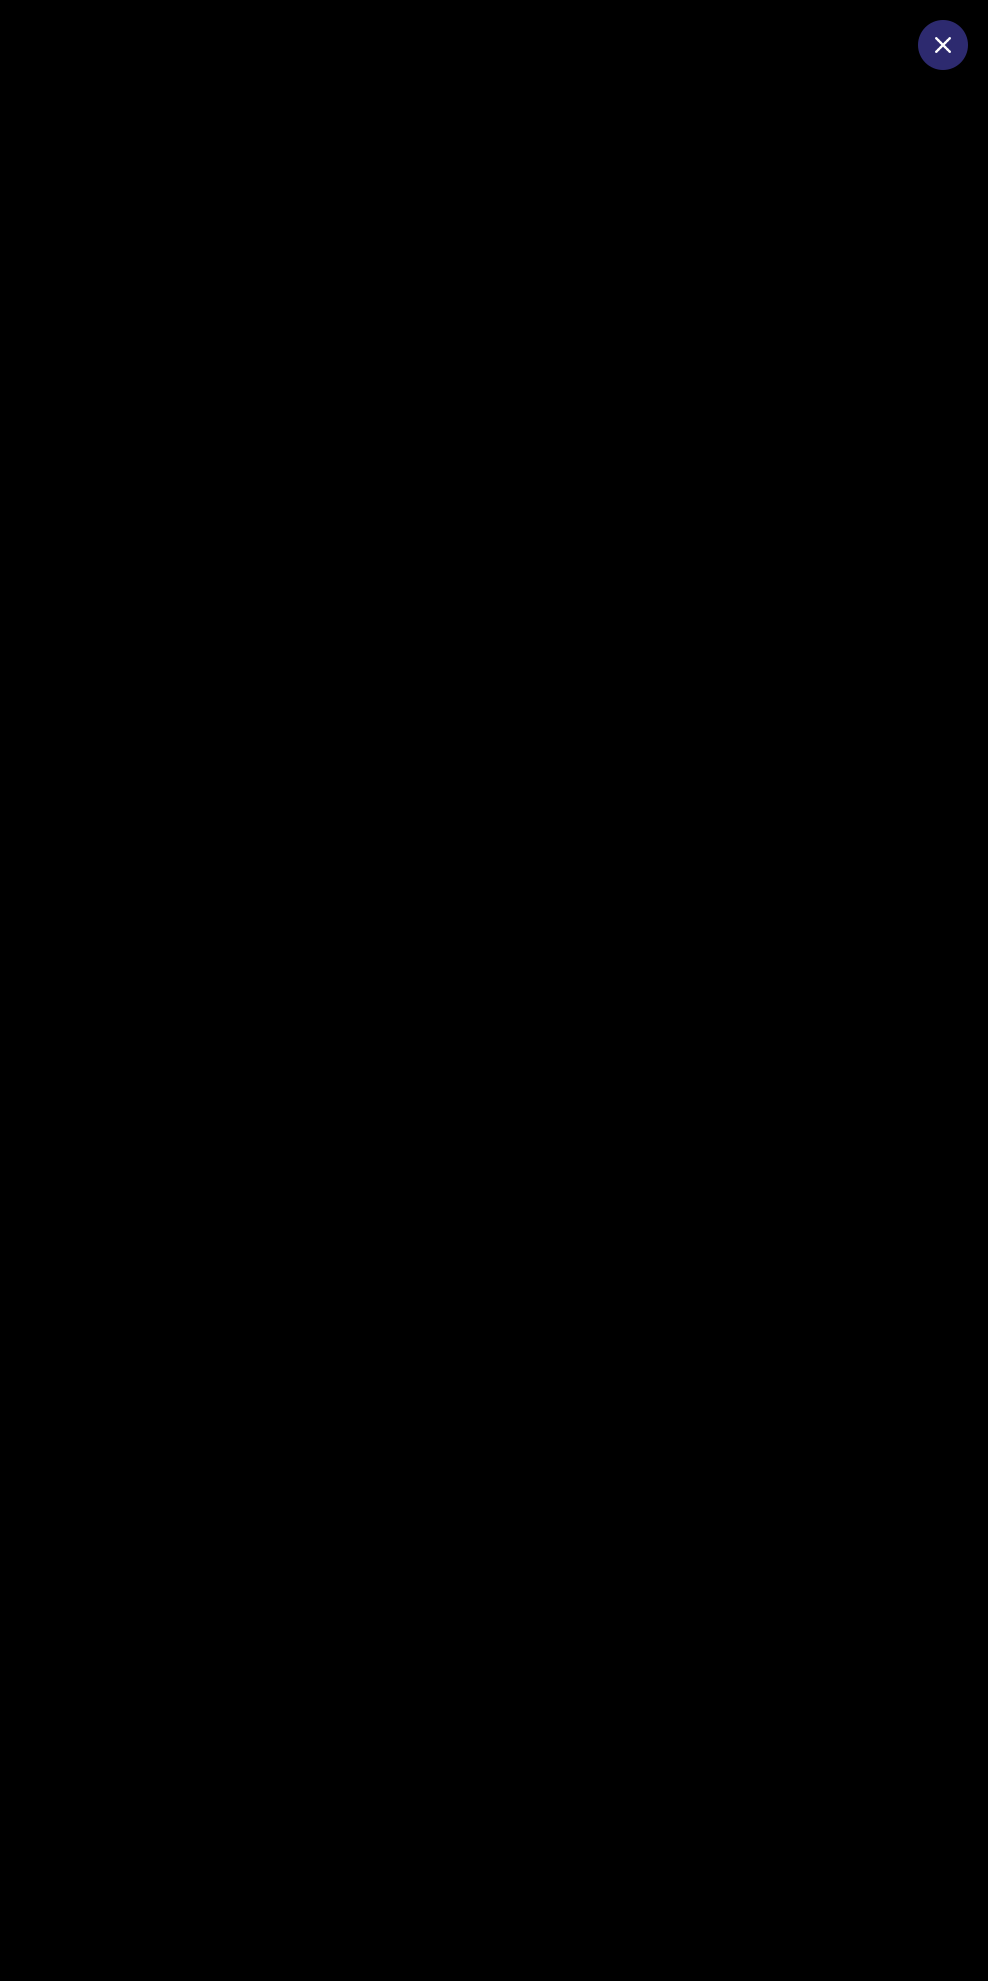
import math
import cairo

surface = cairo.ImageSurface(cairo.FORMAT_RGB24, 988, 1981)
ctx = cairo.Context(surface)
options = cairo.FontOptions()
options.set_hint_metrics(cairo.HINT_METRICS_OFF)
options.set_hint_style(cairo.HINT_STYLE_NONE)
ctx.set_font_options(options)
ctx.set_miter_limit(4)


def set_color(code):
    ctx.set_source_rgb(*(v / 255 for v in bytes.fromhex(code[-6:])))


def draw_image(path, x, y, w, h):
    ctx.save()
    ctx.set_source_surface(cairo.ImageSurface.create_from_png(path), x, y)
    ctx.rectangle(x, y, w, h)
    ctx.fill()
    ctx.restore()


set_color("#000000")
ctx.paint()
set_color("#2d2a6f")
ctx.arc(943, 45, 25, 0, 2 * math.pi)
ctx.fill()
draw_image("assets/img1.png", 935, 37, 16, 16)
surface.write_to_png("output.png")
